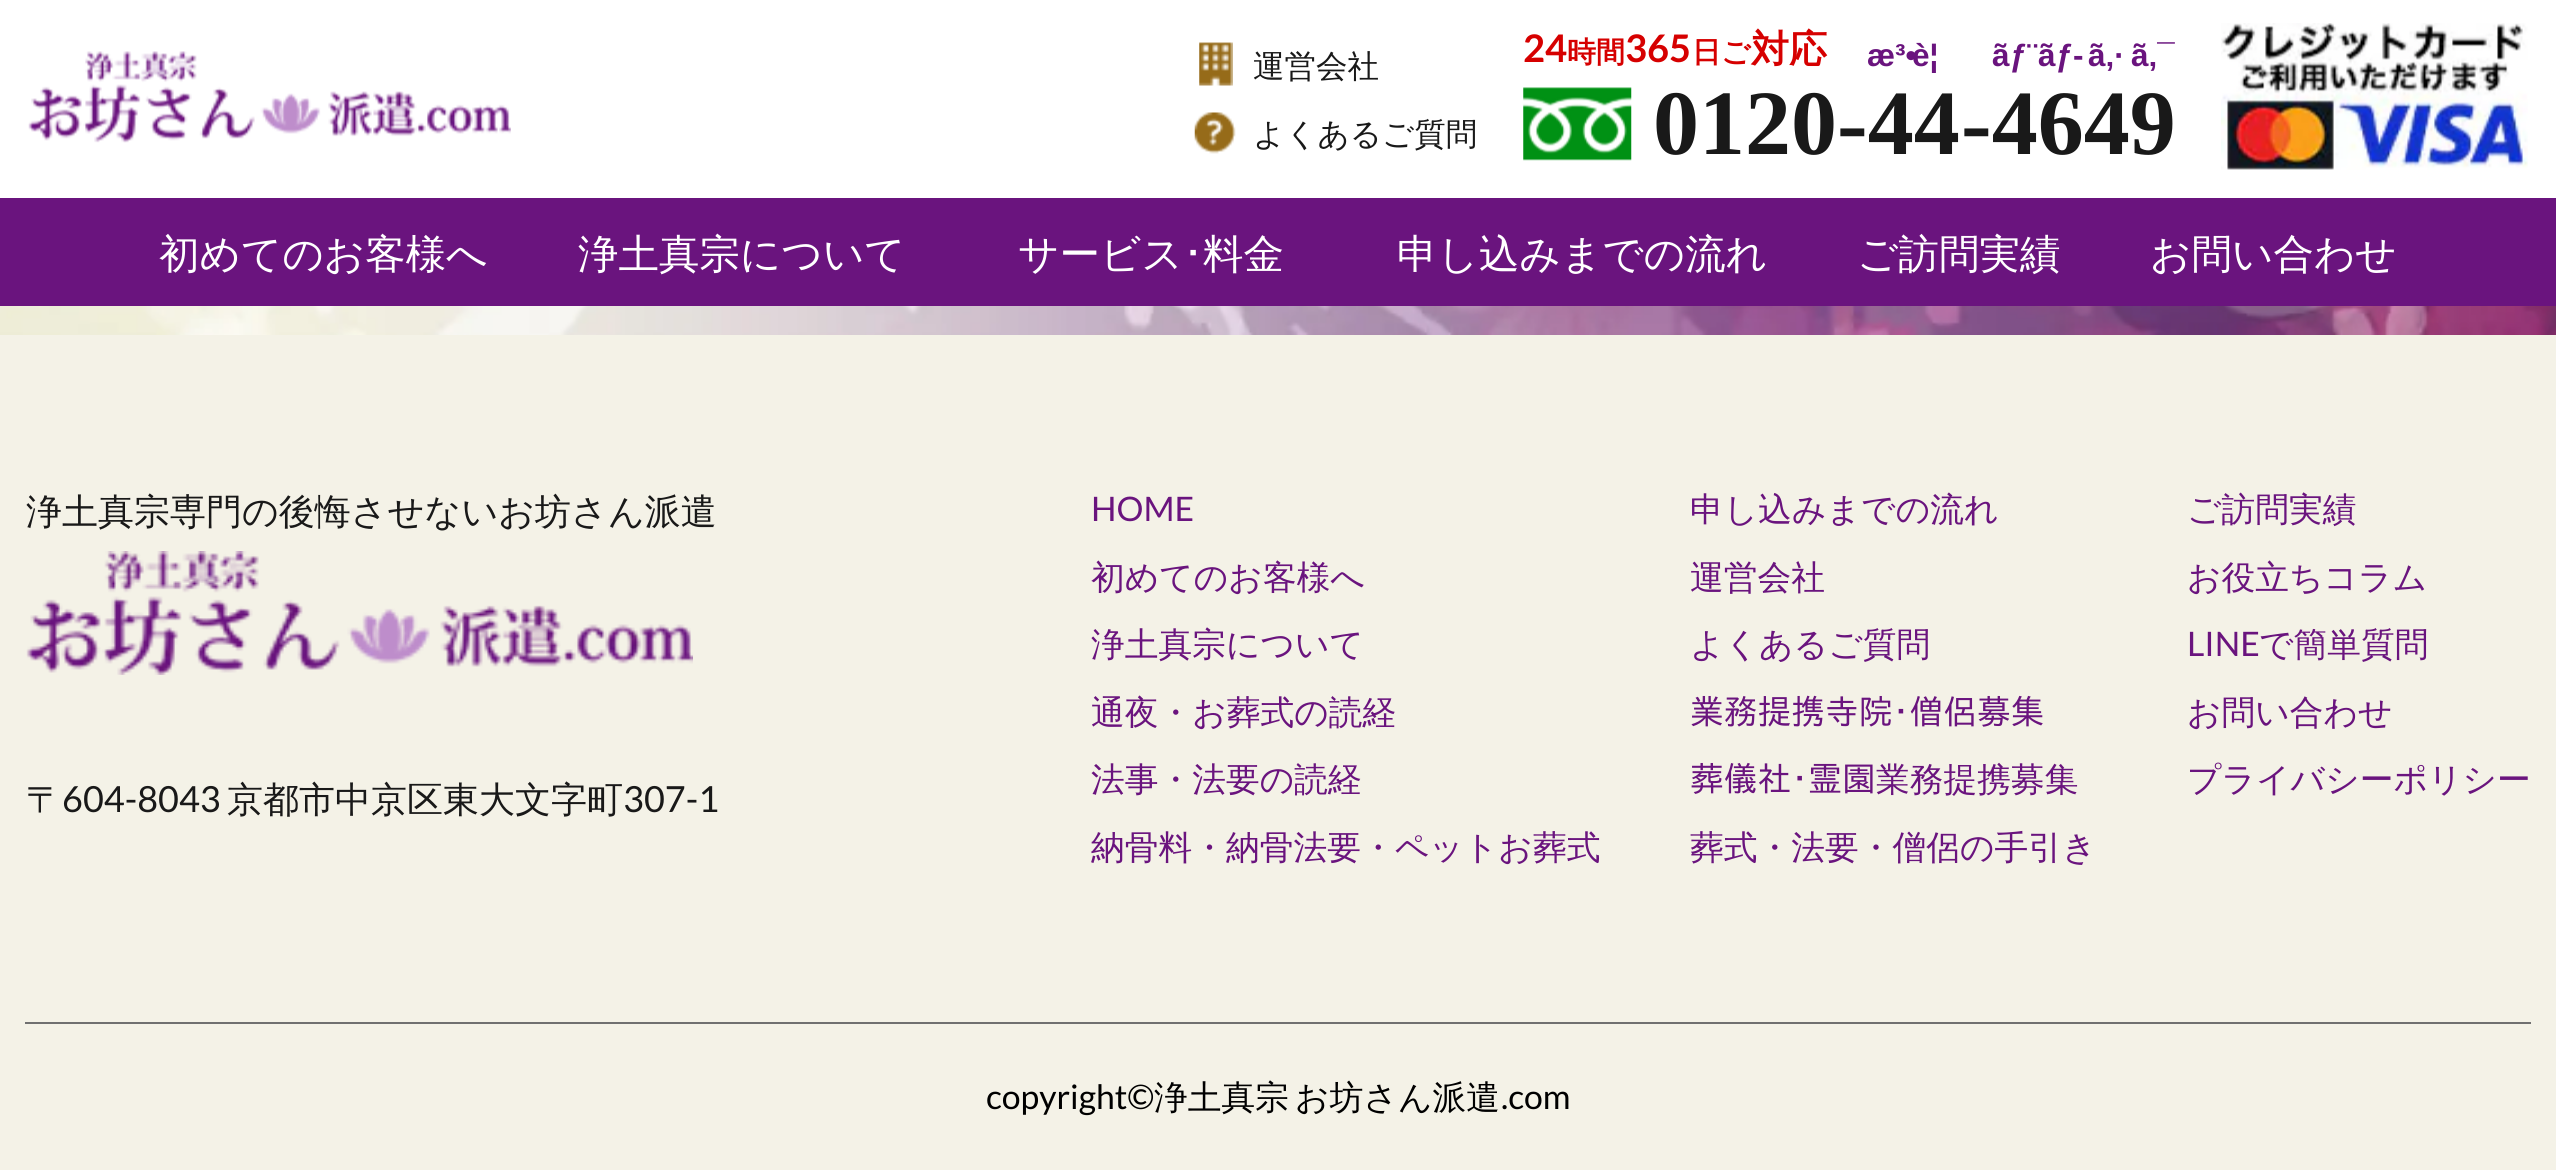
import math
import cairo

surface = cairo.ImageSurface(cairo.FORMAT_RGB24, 2556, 1170)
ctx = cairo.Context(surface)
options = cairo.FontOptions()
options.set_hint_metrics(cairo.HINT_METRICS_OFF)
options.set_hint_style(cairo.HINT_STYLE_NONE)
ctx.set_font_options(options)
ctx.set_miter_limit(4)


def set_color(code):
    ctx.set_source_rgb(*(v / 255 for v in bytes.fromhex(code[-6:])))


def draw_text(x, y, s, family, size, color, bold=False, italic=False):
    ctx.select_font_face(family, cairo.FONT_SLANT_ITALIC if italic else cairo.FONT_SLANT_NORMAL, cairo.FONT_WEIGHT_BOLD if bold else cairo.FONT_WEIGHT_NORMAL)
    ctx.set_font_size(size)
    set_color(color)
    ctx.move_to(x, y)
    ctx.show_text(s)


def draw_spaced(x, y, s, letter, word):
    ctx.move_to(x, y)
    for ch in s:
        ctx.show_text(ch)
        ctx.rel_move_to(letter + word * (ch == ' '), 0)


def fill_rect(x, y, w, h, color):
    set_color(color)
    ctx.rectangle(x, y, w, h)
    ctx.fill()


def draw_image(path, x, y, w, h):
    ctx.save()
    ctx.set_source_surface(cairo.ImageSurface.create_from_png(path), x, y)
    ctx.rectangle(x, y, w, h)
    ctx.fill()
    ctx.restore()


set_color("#ffffff")
ctx.paint()
draw_image("assets/img1.png", 28, 51, 483, 92)
draw_image("assets/img2.png", 1199, 42, 34, 44)
draw_text(1253, 77, "運営会社", "WenQuanYi Zen Hei Medium", 31.5, "#191919")
draw_image("assets/img3.png", 1194, 112, 42, 42)
draw_text(1253, 145, "よくあるご質問", "WenQuanYi Zen Hei Medium", 31.5, "#191919")
draw_text(1523, 62, "24", "Lato", 38, "#d60000", bold=True)
draw_text(1567, 62, "時間", "WenQuanYi Zen Hei", 29, "#d60000", bold=True)
draw_text(1625, 62, "365", "Lato", 38, "#d60000", bold=True)
draw_text(1692, 62, "日ご", "WenQuanYi Zen Hei", 29, "#d60000", bold=True)
draw_text(1751, 62, "対応", "WenQuanYi Zen Hei", 38, "#d60000", bold=True)
draw_text(1867, 66, "æ³•", "Liberation Sans", 31.5, "#6a147e", bold=True)
draw_text(1912, 66, "è¦", "Liberation Sans", 31.5, "#6a147e", bold=True)
draw_text(1992, 66, "ãƒ¨", "Liberation Sans", 31.5, "#6a147e", bold=True)
draw_text(2038, 66, "ãƒ-", "Liberation Sans", 31.5, "#6a147e", bold=True)
draw_text(2088, 66, "ã‚·", "Liberation Sans", 31.5, "#6a147e", bold=True)
draw_text(2131, 66, "ã‚¯", "Liberation Sans", 31.5, "#6a147e", bold=True)
draw_image("assets/img4.png", 1523, 87, 109, 74)
draw_text(1653, 154, "0120-44", "Liberation Serif", 92, "#191919", bold=True)
draw_text(1961, 154, "-4649", "Liberation Serif", 92, "#191919", bold=True)
draw_image("assets/img5.png", 2221, 23, 307, 147)
fill_rect(0, 198, 2556, 108, "#6a147e")
draw_text(159, 268, "初めてのお客様へ", "WenQuanYi Zen Hei Medium", 40.5, "#ffffff")
draw_text(578, 268, "浄土真宗について", "WenQuanYi Zen Hei Medium", 40.5, "#ffffff")
draw_text(1018, 268, "サービス", "WenQuanYi Zen Hei Medium", 40.5, "#ffffff")
draw_text(1183, 268, "･", "IPAPGothic", 40.5, "#ffffff")
draw_text(1203, 268, "料金", "WenQuanYi Zen Hei Medium", 40.5, "#ffffff")
draw_text(1397, 268, "申し込みまでの流れ", "WenQuanYi Zen Hei Medium", 40.5, "#ffffff")
draw_text(1857, 268, "ご訪問実績", "WenQuanYi Zen Hei Medium", 40.5, "#ffffff")
draw_text(2150, 268, "お問い合わせ", "WenQuanYi Zen Hei Medium", 40.5, "#ffffff")
draw_image("assets/img6.png", 0, 306, 2556, 29)
fill_rect(0, 335, 2556, 835, "#f4f2e7")
fill_rect(25, 1022, 2506, 2, "#707070")
draw_text(26, 524, "浄土真宗専門の後悔させないお坊さん派遣", "WenQuanYi Zen Hei Medium", 36, "#191919")
draw_image("assets/img7.png", 26, 551, 667, 124)
draw_text(26, 812, "〒", "WenQuanYi Zen Hei Medium", 36, "#191919")
draw_text(62, 812, "604-8043", "Lato", 36, "#191919")
draw_text(227, 812, "京都市中京区東大文字町", "WenQuanYi Zen Hei Medium", 36, "#191919")
draw_text(623, 812, "307-1", "Lato", 36, "#191919")
draw_text(1091, 521, "HOME", "Lato", 33.75, "#6a147e")
draw_text(1091, 589, "初めてのお客様へ", "WenQuanYi Zen Hei Medium", 33.75, "#6a147e")
draw_text(1091, 656, "浄土真宗について", "WenQuanYi Zen Hei Medium", 33.75, "#6a147e")
draw_text(1091, 724, "通夜・お葬式の読経", "WenQuanYi Zen Hei Medium", 33.75, "#6a147e")
draw_text(1091, 791, "法事・法要の読経", "WenQuanYi Zen Hei Medium", 33.75, "#6a147e")
draw_text(1091, 859, "納骨料・納骨法要・ペットお葬式", "WenQuanYi Zen Hei Medium", 33.75, "#6a147e")
draw_text(1690, 521, "申し込みまでの流れ", "WenQuanYi Zen Hei Medium", 33.75, "#6a147e")
draw_text(1690, 589, "運営会社", "WenQuanYi Zen Hei Medium", 33.75, "#6a147e")
draw_text(1690, 656, "よくあるご質問", "WenQuanYi Zen Hei Medium", 33.75, "#6a147e")
draw_text(1690, 724, "業務提携寺院･僧侶募集", "IPAPGothic", 33.75, "#6a147e")
draw_text(1690, 791, "葬儀社･霊園", "IPAPGothic", 33.75, "#6a147e")
draw_text(1876, 791, "業務提携募集", "WenQuanYi Zen Hei Medium", 33.75, "#6a147e")
draw_text(1690, 859, "葬式・法要・僧侶の手引き", "WenQuanYi Zen Hei Medium", 33.75, "#6a147e")
draw_text(2187, 521, "ご訪問実績", "WenQuanYi Zen Hei Medium", 33.75, "#6a147e")
draw_text(2187, 589, "お役立ちコラム", "WenQuanYi Zen Hei Medium", 33.75, "#6a147e")
draw_text(2187, 656, "LINE", "Lato", 33.75, "#6a147e")
draw_text(2259, 656, "で簡単質問", "WenQuanYi Zen Hei Medium", 33.75, "#6a147e")
draw_text(2187, 724, "お問い合わせ", "WenQuanYi Zen Hei Medium", 33.75, "#6a147e")
draw_text(2187, 791, "プライバシーポリシー", "WenQuanYi Zen Hei Medium", 33.75, "#6a147e")
draw_text(986, 1109, "copyright©", "Lato", 33.75, "#000000")
ctx.select_font_face("WenQuanYi Zen Hei Medium")
draw_spaced(1154, 1109, "浄土真宗 お坊さん派遣", 0, -4)
draw_text(1501, 1109, ".com", "Lato", 33.75, "#000000")
surface.write_to_png("output.png")
